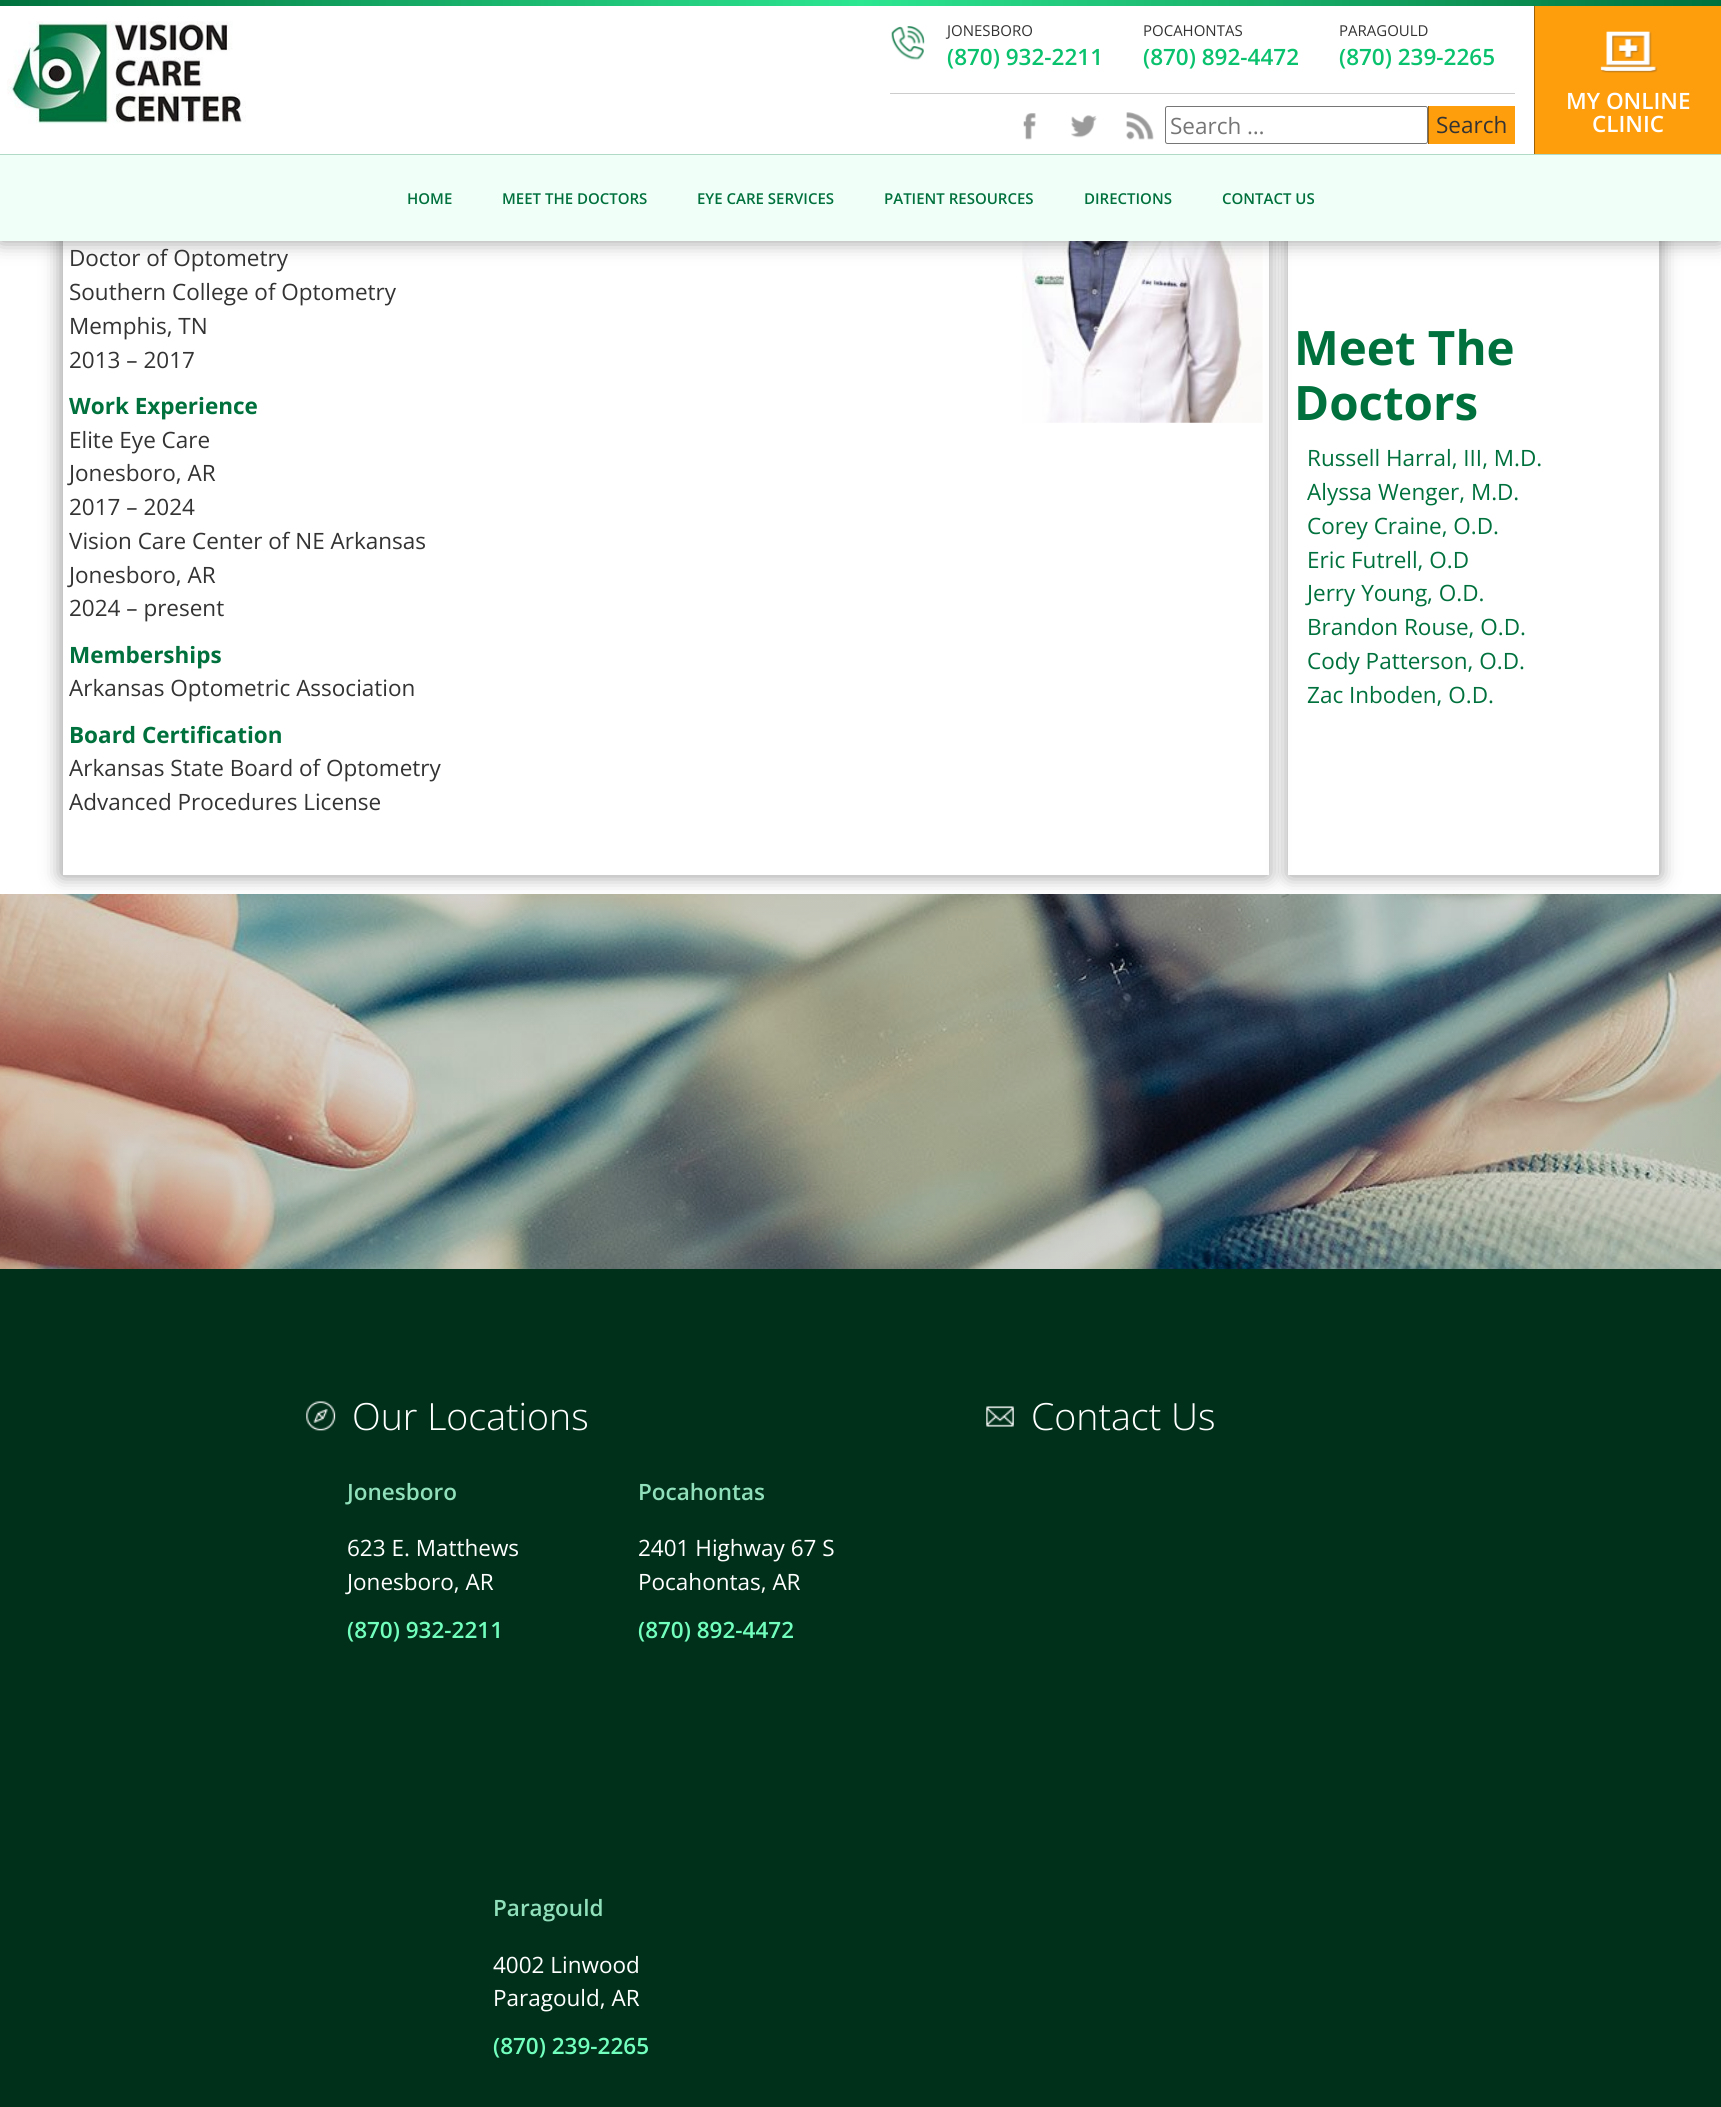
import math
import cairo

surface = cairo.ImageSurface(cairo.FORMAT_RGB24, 1721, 2107)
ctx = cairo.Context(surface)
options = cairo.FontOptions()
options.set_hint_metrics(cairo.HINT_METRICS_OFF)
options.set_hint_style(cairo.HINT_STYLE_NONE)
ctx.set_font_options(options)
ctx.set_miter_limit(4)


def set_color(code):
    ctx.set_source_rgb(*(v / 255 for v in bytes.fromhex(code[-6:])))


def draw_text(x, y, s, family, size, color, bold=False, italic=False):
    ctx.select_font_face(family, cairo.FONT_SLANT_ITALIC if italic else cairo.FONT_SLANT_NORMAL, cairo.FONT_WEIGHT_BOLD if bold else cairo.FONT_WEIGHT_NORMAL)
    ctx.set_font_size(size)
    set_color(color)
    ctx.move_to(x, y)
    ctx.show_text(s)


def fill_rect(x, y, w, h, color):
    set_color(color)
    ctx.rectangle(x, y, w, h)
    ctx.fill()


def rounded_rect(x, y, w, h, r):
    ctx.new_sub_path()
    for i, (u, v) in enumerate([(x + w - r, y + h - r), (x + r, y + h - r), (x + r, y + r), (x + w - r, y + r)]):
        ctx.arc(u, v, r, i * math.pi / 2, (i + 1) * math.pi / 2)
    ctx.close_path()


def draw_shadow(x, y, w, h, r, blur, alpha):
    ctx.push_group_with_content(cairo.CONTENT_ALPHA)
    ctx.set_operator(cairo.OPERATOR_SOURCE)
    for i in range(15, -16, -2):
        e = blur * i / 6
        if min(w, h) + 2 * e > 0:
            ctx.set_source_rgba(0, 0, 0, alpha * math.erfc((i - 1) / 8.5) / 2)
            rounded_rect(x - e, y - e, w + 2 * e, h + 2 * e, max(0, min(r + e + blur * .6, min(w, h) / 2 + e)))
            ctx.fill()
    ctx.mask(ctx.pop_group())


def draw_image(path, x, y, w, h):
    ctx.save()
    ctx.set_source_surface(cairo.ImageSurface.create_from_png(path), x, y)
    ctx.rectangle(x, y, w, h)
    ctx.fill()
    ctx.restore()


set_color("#ffffff")
ctx.paint()
draw_image("assets/img8.png", 0, 894, 1721, 375)
ctx.save()
ctx.set_fill_rule(cairo.FILL_RULE_EVEN_ODD)
ctx.new_path()
ctx.move_to(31, 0)
ctx.line_to(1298, 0)
ctx.line_to(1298, 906)
ctx.line_to(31, 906)
ctx.close_path()
ctx.move_to(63, -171)
ctx.line_to(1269, -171)
ctx.line_to(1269, 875)
ctx.line_to(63, 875)
ctx.close_path()
ctx.clip()
set_color("#000000")
draw_shadow(61, -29, 1207, 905, 0, 9.5, 0.4)
ctx.restore()
draw_image("assets/img7.png", 1022, 241, 241, 182)
set_color("#000000")
draw_shadow(0, 0, 1721, 241, 0, 10, 0.41)
ctx.save()
ctx.set_fill_rule(cairo.FILL_RULE_EVEN_ODD)
ctx.new_path()
ctx.move_to(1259, 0)
ctx.line_to(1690, 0)
ctx.line_to(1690, 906)
ctx.line_to(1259, 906)
ctx.close_path()
ctx.move_to(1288, -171)
ctx.line_to(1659, -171)
ctx.line_to(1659, 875)
ctx.line_to(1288, 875)
ctx.close_path()
ctx.clip()
draw_shadow(1289, -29, 371, 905, 0, 9.5, 0.4)
ctx.restore()
fill_rect(0, 6, 1534, 148, "#ffffff")
gradient = cairo.LinearGradient(0, 3.1, 1721, 3.1)
gradient.add_color_stop_rgba(0, 0, 0.443, 0.239, 1)
gradient.add_color_stop_rgba(0.5, 0.173, 0.902, 0.565, 1)
gradient.add_color_stop_rgba(1, 0, 0.443, 0.239, 1)
ctx.set_source(gradient)
ctx.rectangle(0, 0, 1721, 6)
ctx.fill()
draw_image("assets/img1.png", 7, 21, 239, 103)
draw_image("assets/img2.png", 891, 26, 34, 34)
fill_rect(890, 93, 625, 1, "#cccccc")
draw_text(947, 36, "JONESBORO", "Open Sans", 15, "#333333")
draw_text(947, 65, "(870) 932-2211", "Open Sans SemiBold", 22.5, "#0ac26d")
draw_text(1143, 36, "POCAHONTAS", "Open Sans", 15, "#333333")
draw_text(1143, 65, "(870) 892-4472", "Open Sans SemiBold", 22.5, "#0ac26d")
draw_text(1339, 36, "PARAGOULD", "Open Sans", 15, "#333333")
draw_text(1339, 65, "(870) 239-2265", "Open Sans SemiBold", 22.5, "#0ac26d")
draw_image("assets/img3.png", 1023, 113, 13, 27)
draw_image("assets/img4.png", 1071, 115, 26, 23)
draw_image("assets/img5.png", 1126, 112, 28, 28)
rounded_rect(1165.5, 106.5, 262, 37, 2)
set_color("#767676")
ctx.set_line_width(1)
ctx.stroke()
draw_text(1170, 134, "Search …", "Open Sans", 22.5, "#757575")
fill_rect(1429, 106, 86, 38, "#ff9e0c")
fill_rect(1428, 106, 1, 38, "#9e6105")
draw_text(1436, 133, "Search", "Open Sans", 22.5, "#333333")
fill_rect(1535, 6, 186, 148, "#ff9e0c")
fill_rect(1534, 6, 1, 148, "#9e6105")
draw_image("assets/img6.png", 1600, 31, 58, 42)
draw_text(1566, 109, "MY ONLINE", "Open Sans SemiBold", 22.5, "#ffffff")
draw_text(1592, 132, "CLINIC", "Open Sans SemiBold", 22.5, "#ffffff")
fill_rect(0, 155, 1721, 86, "#f1fff9")
fill_rect(0, 154, 1721, 1, "#b0d9c6")
draw_text(407, 204, "HOME", "Open Sans SemiBold", 15, "#00713d")
draw_text(502, 204, "MEET THE DOCTORS", "Open Sans SemiBold", 15, "#00713d")
draw_text(697, 204, "EYE CARE SERVICES", "Open Sans SemiBold", 15, "#00713d")
draw_text(884, 204, "PATIENT RESOURCES", "Open Sans SemiBold", 15, "#00713d")
draw_text(1084, 204, "DIRECTIONS", "Open Sans SemiBold", 15, "#00713d")
draw_text(1222, 204, "CONTACT US", "Open Sans SemiBold", 15, "#00713d")
draw_text(69, 266, "Doctor of Optometry", "Open Sans", 22.5, "#333333")
draw_text(69, 300, "Southern College of Optometry", "Open Sans", 22.5, "#333333")
draw_text(69, 334, "Memphis, TN", "Open Sans", 22.5, "#333333")
draw_text(69, 368, "2013 – 2017", "Open Sans", 22.5, "#333333")
draw_text(69, 414, "Work Experience", "Open Sans", 22.5, "#00713d", bold=True)
draw_text(69, 448, "Elite Eye Care", "Open Sans", 22.5, "#333333")
draw_text(69, 481, "Jonesboro, AR", "Open Sans", 22.5, "#333333")
draw_text(69, 515, "2017 – 2024", "Open Sans", 22.5, "#333333")
draw_text(69, 549, "Vision Care Center of NE Arkansas", "Open Sans", 22.5, "#333333")
draw_text(69, 583, "Jonesboro, AR", "Open Sans", 22.5, "#333333")
draw_text(69, 616, "2024 – present", "Open Sans", 22.5, "#333333")
draw_text(69, 663, "Memberships", "Open Sans", 22.5, "#00713d", bold=True)
draw_text(69, 696, "Arkansas Optometric Association", "Open Sans", 22.5, "#333333")
draw_text(69, 743, "Board Certification", "Open Sans", 22.5, "#00713d", bold=True)
draw_text(69, 776, "Arkansas State Board of Optometry", "Open Sans", 22.5, "#333333")
draw_text(69, 810, "Advanced Procedures License", "Open Sans", 22.5, "#333333")
draw_text(1294, 365, "Meet The", "Open Sans", 47.5, "#00713d", bold=True)
draw_text(1294, 420, "Doctors", "Open Sans", 47.5, "#00713d", bold=True)
draw_text(1307, 466, "Russell Harral, III, M.D.", "Open Sans", 22.5, "#00713d")
draw_text(1307, 500, "Alyssa Wenger, M.D.", "Open Sans", 22.5, "#00713d")
draw_text(1307, 534, "Corey Craine, O.D.", "Open Sans", 22.5, "#00713d")
draw_text(1307, 568, "Eric Futrell, O.D", "Open Sans", 22.5, "#00713d")
draw_text(1307, 601, "Jerry Young, O.D.", "Open Sans", 22.5, "#00713d")
draw_text(1307, 635, "Brandon Rouse, O.D.", "Open Sans", 22.5, "#00713d")
draw_text(1307, 669, "Cody Patterson, O.D.", "Open Sans", 22.5, "#00713d")
draw_text(1307, 703, "Zac Inboden, O.D.", "Open Sans", 22.5, "#00713d")
fill_rect(0, 1269, 1721, 838, "#00301a")
draw_image("assets/img9.png", 306, 1401, 30, 30)
draw_text(352, 1430, "Our Locations", "Open Sans Light", 37.5, "#ffffff")
draw_text(347, 1500, "Jonesboro", "Open Sans SemiBold", 22.5, "#90e0bb")
draw_text(347, 1556, "623 E. Matthews", "Open Sans", 22.5, "#ffffff")
draw_text(347, 1590, "Jonesboro, AR", "Open Sans", 22.5, "#ffffff")
draw_text(347, 1638, "(870) 932-2211", "Open Sans SemiBold", 22.5, "#72ffbe")
draw_text(638, 1500, "Pocahontas", "Open Sans SemiBold", 22.5, "#90e0bb")
draw_text(638, 1556, "2401 Highway 67 S", "Open Sans", 22.5, "#ffffff")
draw_text(638, 1590, "Pocahontas, AR", "Open Sans", 22.5, "#ffffff")
draw_text(638, 1638, "(870) 892-4472", "Open Sans SemiBold", 22.5, "#72ffbe")
draw_text(493, 1916, "Paragould", "Open Sans SemiBold", 22.5, "#90e0bb")
draw_text(493, 1973, "4002 Linwood", "Open Sans", 22.5, "#ffffff")
draw_text(493, 2006, "Paragould, AR", "Open Sans", 22.5, "#ffffff")
draw_text(493, 2054, "(870) 239-2265", "Open Sans SemiBold", 22.5, "#72ffbe")
draw_image("assets/img10.png", 986, 1406, 28, 21)
draw_text(1031, 1430, "Contact Us", "Open Sans Light", 37.5, "#ffffff")
surface.write_to_png("output.png")
